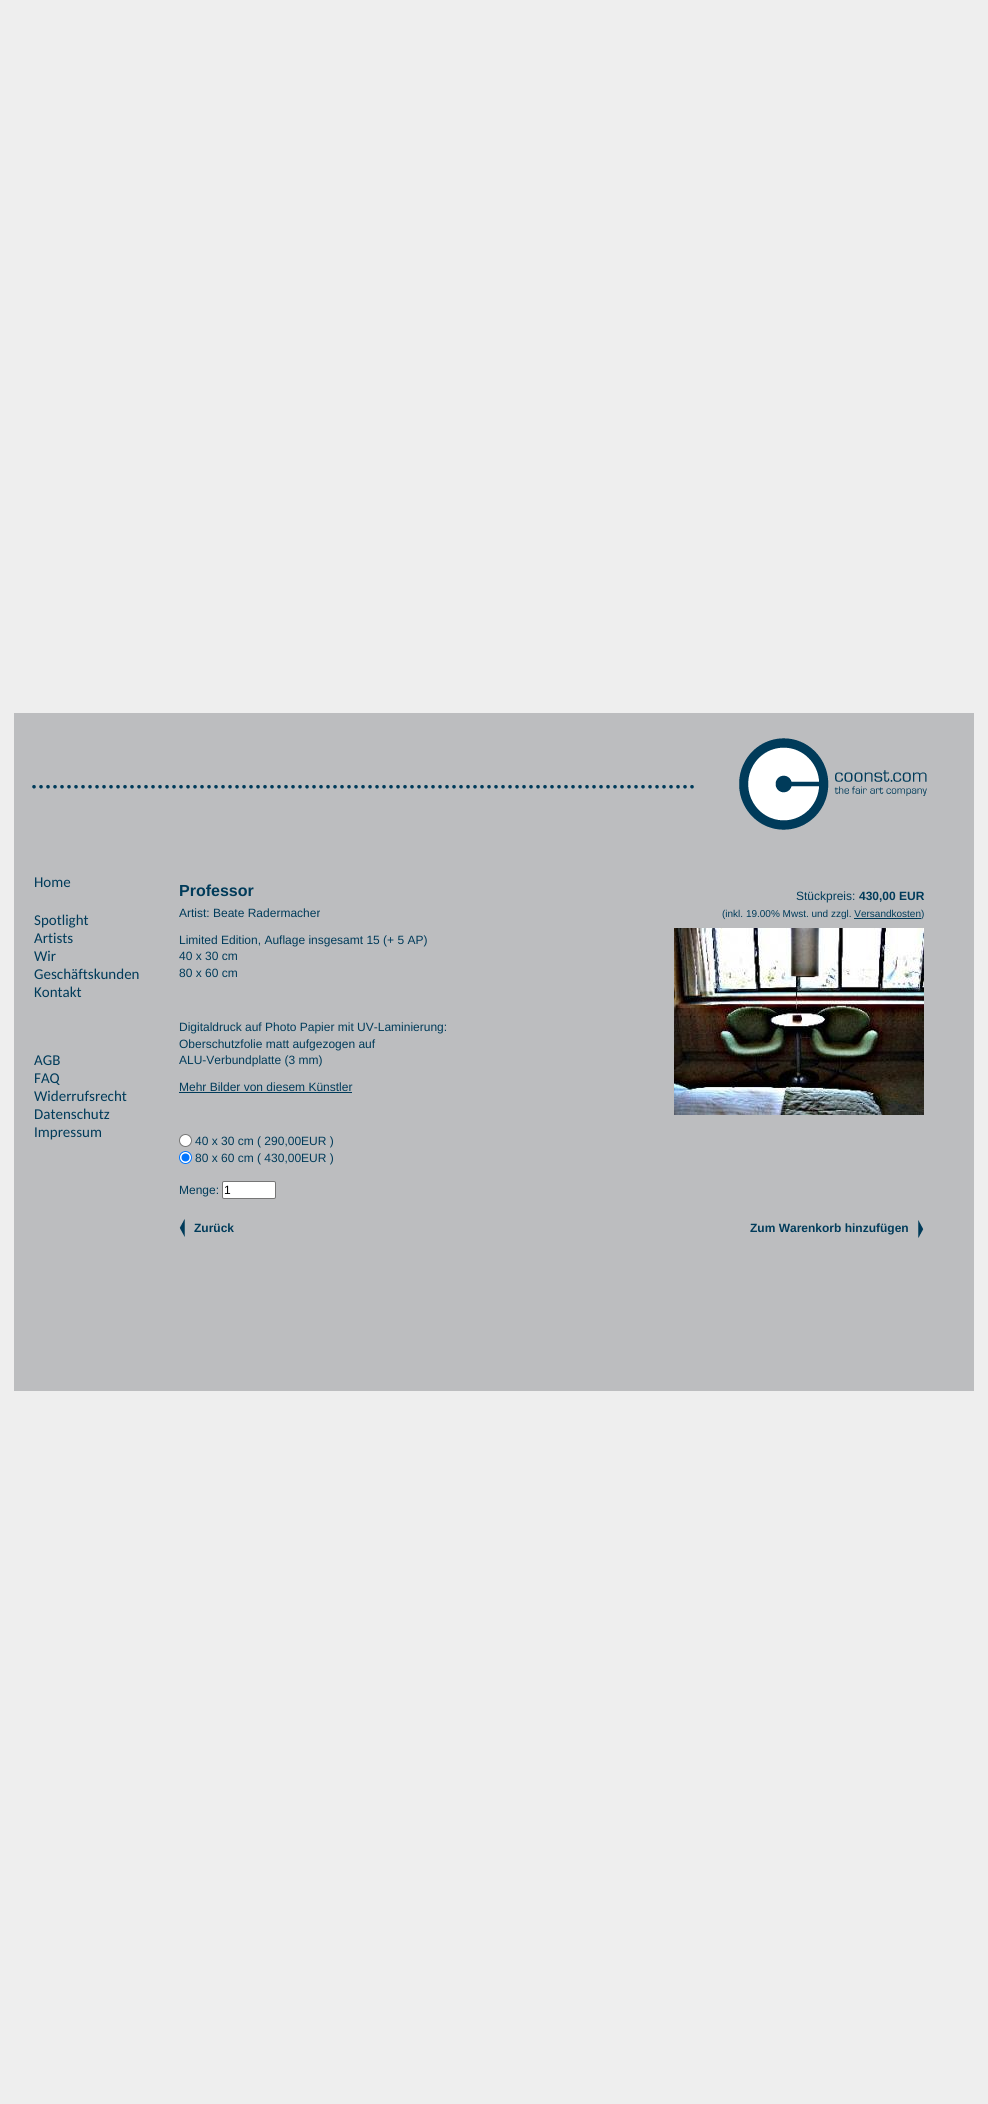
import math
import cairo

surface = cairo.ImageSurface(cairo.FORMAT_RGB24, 988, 2104)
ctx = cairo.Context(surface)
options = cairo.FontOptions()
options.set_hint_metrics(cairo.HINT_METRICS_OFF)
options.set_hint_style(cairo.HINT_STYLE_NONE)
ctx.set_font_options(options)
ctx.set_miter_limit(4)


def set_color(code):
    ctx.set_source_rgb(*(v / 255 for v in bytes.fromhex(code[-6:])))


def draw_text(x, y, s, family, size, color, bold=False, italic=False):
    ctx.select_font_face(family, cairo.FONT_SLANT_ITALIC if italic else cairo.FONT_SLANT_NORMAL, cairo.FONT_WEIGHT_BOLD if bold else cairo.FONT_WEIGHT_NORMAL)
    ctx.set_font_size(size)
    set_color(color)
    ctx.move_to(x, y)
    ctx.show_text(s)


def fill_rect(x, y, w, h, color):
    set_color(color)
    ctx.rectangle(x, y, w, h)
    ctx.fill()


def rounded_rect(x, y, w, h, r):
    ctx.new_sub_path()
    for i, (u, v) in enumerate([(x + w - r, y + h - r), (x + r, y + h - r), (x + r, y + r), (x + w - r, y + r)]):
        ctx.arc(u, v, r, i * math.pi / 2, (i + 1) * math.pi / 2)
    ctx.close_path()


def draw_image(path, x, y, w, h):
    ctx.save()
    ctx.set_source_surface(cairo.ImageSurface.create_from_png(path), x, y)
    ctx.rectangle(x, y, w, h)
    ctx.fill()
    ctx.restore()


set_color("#eeeeee")
ctx.paint()
fill_rect(14, 713, 960, 678, "#bcbdbf")
draw_image("assets/img1.png", 32, 785, 662, 4)
draw_image("assets/img2.png", 739, 738, 188, 92)
draw_text(34, 887, "Home", "Carlito", 15, "#003b5a")
draw_text(34, 925, "Spotlight", "Carlito", 15, "#003b5a")
draw_text(34, 943, "Artists", "Carlito", 15, "#003b5a")
draw_text(34, 961, "Wir", "Carlito", 15, "#003b5a")
draw_text(34, 979, "Geschäftskunden", "Carlito", 15, "#003b5a")
draw_text(34, 997, "Kontakt", "Carlito", 15, "#003b5a")
draw_text(34, 1065, "AGB", "Carlito", 15, "#003b5a")
draw_text(34, 1083, "FAQ", "Carlito", 15, "#003b5a")
draw_text(34, 1101, "Widerrufsrecht", "Carlito", 15, "#003b5a")
draw_text(34, 1119, "Datenschutz", "Carlito", 15, "#003b5a")
draw_text(34, 1137, "Impressum", "Carlito", 15, "#003b5a")
draw_text(179, 896, "Professor", "Liberation Sans", 16, "#003b5a", bold=True)
draw_text(796, 900, "Stückpreis:", "Liberation Sans", 12, "#003b5a")
draw_text(859, 900, "430,00 EUR", "Liberation Sans", 12, "#003b5a", bold=True)
draw_text(722, 917, "(inkl. 19.00% Mwst. und zzgl. Versandkosten", "Liberation Sans", 10, "#003b5a")
fill_rect(854, 918, 67, 1, "#003b5a")
draw_text(921, 917, ")", "Liberation Sans", 10, "#003b5a")
draw_text(179, 917, "Artist: Beate Radermacher", "Liberation Sans", 12, "#003b5a")
draw_text(179, 944, "Limited Edition, Auflage insgesamt 15 (+ 5 AP)", "Liberation Sans", 12, "#003b5a")
draw_text(179, 960, "40 x 30 cm", "Liberation Sans", 12, "#003b5a")
draw_text(179, 977, "80 x 60 cm", "Liberation Sans", 12, "#003b5a")
draw_text(179, 1031, "Digitaldruck auf Photo Papier mit UV-Laminierung:", "Liberation Sans", 12, "#003b5a")
draw_text(179, 1048, "Oberschutzfolie matt aufgezogen auf", "Liberation Sans", 12, "#003b5a")
draw_text(179, 1064, "ALU-Verbundplatte (3 mm)", "Liberation Sans", 12, "#003b5a")
draw_text(179, 1091, "Mehr Bilder von diesem Künstler", "Liberation Sans", 12, "#003b5a")
fill_rect(179, 1092, 173, 1, "#003b5a")
draw_image("assets/img3.png", 674, 928, 250, 187)
set_color("#ffffff")
ctx.arc(185.5, 1140.5, 6, 0, 2 * math.pi)
ctx.fill_preserve()
set_color("#767676")
ctx.set_line_width(1)
ctx.stroke()
draw_text(195, 1145, "40 x 30 cm ( 290,00EUR )", "Liberation Sans", 12, "#003b5a")
set_color("#ffffff")
ctx.new_path()
ctx.arc(185.5, 1157.5, 6, 0, 2 * math.pi)
ctx.fill_preserve()
set_color("#0075ff")
ctx.stroke()
ctx.arc(185.5, 1157.5, 4, 0, 2 * math.pi)
ctx.fill()
draw_text(195, 1162, "80 x 60 cm ( 430,00EUR )", "Liberation Sans", 12, "#003b5a")
draw_text(179, 1194, "Menge:", "Liberation Sans", 12, "#003b5a")
set_color("#ffffff")
rounded_rect(222.5, 1181.5, 53, 17, 1.5)
ctx.fill_preserve()
set_color("#767676")
ctx.stroke()
draw_text(224, 1194, "1", "Liberation Sans", 12, "#000000")
draw_image("assets/img4.png", 179, 1219, 6, 18)
draw_text(194, 1232, "Zurück", "Liberation Sans", 12, "#003b5a", bold=True)
draw_image("assets/img5.png", 918, 1220, 6, 18)
draw_text(750, 1232, "Zum Warenkorb hinzufügen", "Liberation Sans", 12, "#003b5a", bold=True)
surface.write_to_png("output.png")
